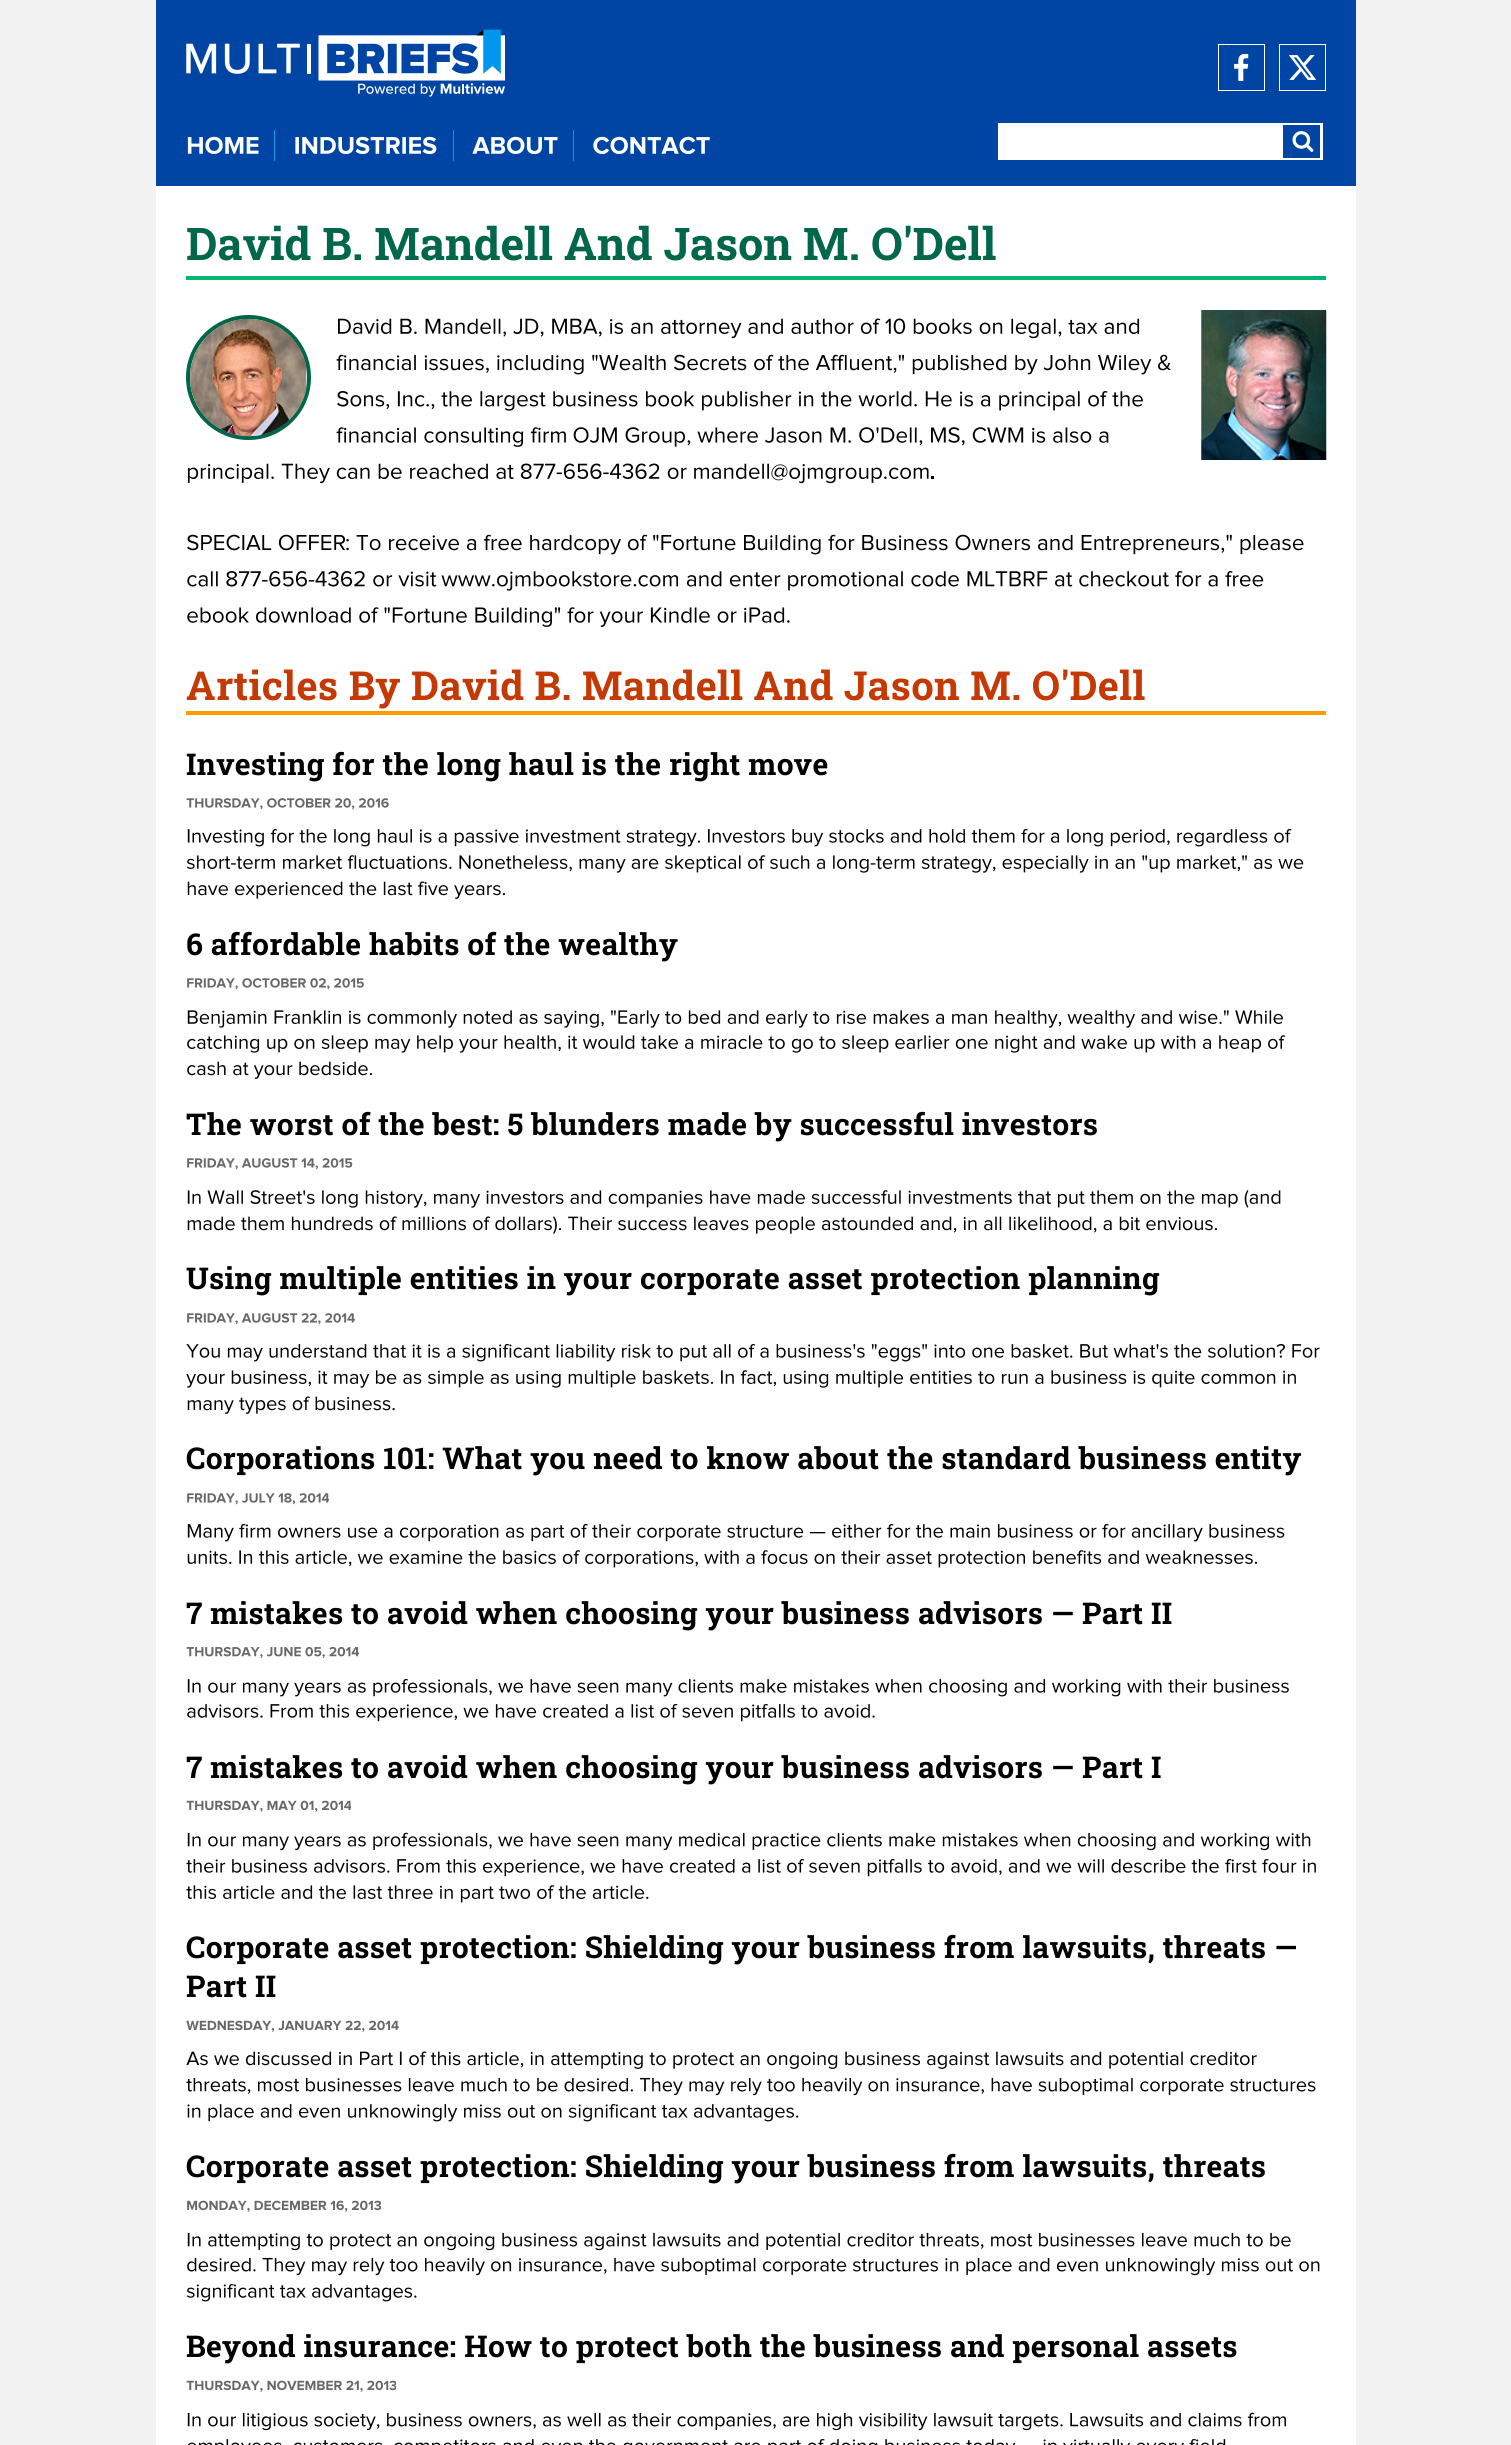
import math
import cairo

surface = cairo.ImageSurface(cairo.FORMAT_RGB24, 1511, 2445)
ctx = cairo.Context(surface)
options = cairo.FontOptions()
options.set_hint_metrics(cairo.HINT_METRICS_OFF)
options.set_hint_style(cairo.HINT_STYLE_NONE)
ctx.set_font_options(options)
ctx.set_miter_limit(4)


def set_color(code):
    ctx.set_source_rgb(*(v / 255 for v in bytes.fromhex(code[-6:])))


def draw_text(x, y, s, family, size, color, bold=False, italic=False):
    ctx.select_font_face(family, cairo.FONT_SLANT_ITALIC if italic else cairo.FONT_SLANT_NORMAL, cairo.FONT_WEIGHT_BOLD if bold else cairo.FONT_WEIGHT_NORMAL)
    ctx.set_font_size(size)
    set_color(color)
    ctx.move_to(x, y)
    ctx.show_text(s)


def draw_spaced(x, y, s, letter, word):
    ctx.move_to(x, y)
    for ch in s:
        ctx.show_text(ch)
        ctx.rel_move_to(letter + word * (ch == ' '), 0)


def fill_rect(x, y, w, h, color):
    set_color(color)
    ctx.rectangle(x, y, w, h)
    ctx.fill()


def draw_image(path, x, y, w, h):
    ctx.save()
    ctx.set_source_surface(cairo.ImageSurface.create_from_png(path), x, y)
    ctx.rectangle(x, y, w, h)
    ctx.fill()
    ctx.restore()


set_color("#f2f2f2")
ctx.paint()
fill_rect(156, 0, 1200, 186, "#0045a4")
fill_rect(274, 130, 1, 31, "#0096ed")
draw_image("assets/img1.png", 187, 136, 72, 18)
fill_rect(453, 130, 1, 31, "#0096ed")
draw_image("assets/img2.png", 295, 136, 142, 19)
fill_rect(573, 130, 1, 31, "#0096ed")
draw_image("assets/img3.png", 472, 136, 86, 19)
draw_image("assets/img4.png", 593, 136, 117, 19)
ctx.rectangle(999.5, 124.5, 322, 34)
set_color("#ffffff")
ctx.set_line_width(3)
ctx.stroke()
fill_rect(1001, 126, 282, 31, "#ffffff")
fill_rect(1283, 125, 37, 33, "#0045a4")
draw_image("assets/img5.png", 1292, 131, 22, 21)
draw_image("assets/img6.png", 186, 29, 319, 68)
ctx.rectangle(1218.5, 44.5, 46, 46)
set_color("#ffffff")
ctx.set_line_width(1)
ctx.stroke()
draw_image("assets/img7.png", 1234, 54, 15, 27)
ctx.rectangle(1279.5, 44.5, 46, 46)
ctx.stroke()
draw_image("assets/img8.png", 1289, 55, 27, 25)
fill_rect(156, 186, 1200, 2259, "#ffffff")
fill_rect(186, 276, 1140, 4, "#00b771")
draw_text(186, 260, "David B. Mandell And Jason M. O'Dell", "Roboto Slab", 45, "#00674a", bold=True)
ctx.new_path()
ctx.arc(248.5, 377.5, 60.5, 0, 2 * math.pi)
set_color("#00664a")
ctx.set_line_width(4)
ctx.stroke()
draw_image("assets/img9.png", 190, 318, 117, 119)
draw_image("assets/img10.png", 338, 318, 802, 21)
draw_image("assets/img11.png", 1201, 310, 126, 150)
draw_image("assets/img12.png", 336, 354, 835, 21)
draw_image("assets/img13.png", 337, 391, 806, 20)
draw_image("assets/img14.png", 336, 427, 230, 20)
draw_image("assets/img15.png", 573, 427, 112, 20)
draw_image("assets/img16.png", 687, 427, 422, 19)
draw_image("assets/img17.png", 187, 463, 500, 21)
draw_image("assets/img18.png", 694, 463, 235, 21)
fill_rect(931, 476, 3, 3, "#000000")
draw_image("assets/img19.png", 187, 534, 158, 17)
draw_image("assets/img20.png", 346, 534, 958, 21)
draw_image("assets/img21.png", 187, 571, 250, 16)
draw_image("assets/img22.png", 441, 571, 237, 20)
draw_image("assets/img23.png", 686, 571, 578, 20)
draw_image("assets/img24.png", 187, 607, 603, 20)
fill_rect(186, 711, 1140, 4, "#f99b03")
ctx.set_font_size(40)
set_color("#c53904")
draw_spaced(186, 700, "Articles By David B. Mandell And Jason M. O'Dell", 0.4, 0)
ctx.set_font_size(30)
set_color("#000000")
draw_spaced(186, 775, "Investing for the long haul is the right move", 0.3, 0)
draw_image("assets/img25.png", 186, 798, 203, 12)
draw_image("assets/img26.png", 187, 829, 1105, 18)
draw_image("assets/img27.png", 187, 855, 1117, 18)
draw_image("assets/img28.png", 187, 881, 318, 18)
draw_spaced(186, 955, "6 affordable habits of the wealthy", 0.3, 0)
draw_image("assets/img29.png", 187, 978, 177, 12)
draw_image("assets/img30.png", 187, 1010, 1096, 18)
draw_image("assets/img31.png", 187, 1035, 1099, 18)
draw_image("assets/img32.png", 187, 1061, 185, 18)
draw_spaced(186, 1135, "The worst of the best: 5 blunders made by successful investors", 0.3, 0)
draw_image("assets/img33.png", 187, 1158, 166, 12)
draw_image("assets/img34.png", 187, 1190, 1094, 18)
draw_image("assets/img35.png", 187, 1216, 1031, 18)
draw_spaced(186, 1289, "Using multiple entities in your corporate asset protection planning", 0.3, 0)
draw_image("assets/img36.png", 187, 1313, 168, 12)
draw_image("assets/img37.png", 186, 1344, 1134, 18)
draw_image("assets/img38.png", 186, 1370, 1110, 18)
draw_image("assets/img39.png", 187, 1396, 208, 18)
draw_spaced(186, 1469, "Corporations 101: What you need to know about the standard business entity", 0.3, 0)
draw_image("assets/img40.png", 187, 1493, 142, 12)
draw_image("assets/img41.png", 187, 1524, 1098, 18)
draw_image("assets/img42.png", 187, 1550, 1071, 18)
draw_spaced(186, 1624, "7 mistakes to avoid when choosing your business advisors — Part II", 0.3, 0)
draw_image("assets/img43.png", 186, 1646, 173, 12)
draw_image("assets/img44.png", 187, 1679, 1102, 18)
draw_image("assets/img45.png", 187, 1704, 688, 18)
draw_spaced(186, 1778, "7 mistakes to avoid when choosing your business advisors — Part I", 0.3, 0)
draw_image("assets/img46.png", 186, 1800, 165, 12)
draw_image("assets/img47.png", 187, 1832, 1124, 19)
draw_image("assets/img48.png", 186, 1859, 1130, 18)
draw_image("assets/img49.png", 186, 1885, 463, 18)
draw_spaced(186, 1958, "Corporate asset protection: Shielding your business from lawsuits, threats —", 0.3, 0)
draw_spaced(186, 1997, "Part II", 0.3, 0)
draw_image("assets/img50.png", 186, 2020, 213, 12)
draw_image("assets/img51.png", 186, 2051, 1071, 18)
draw_image("assets/img52.png", 186, 2077, 1130, 19)
draw_image("assets/img53.png", 187, 2104, 612, 18)
draw_spaced(186, 2177, "Corporate asset protection: Shielding your business from lawsuits, threats", 0.3, 0)
draw_image("assets/img54.png", 187, 2200, 194, 12)
draw_image("assets/img55.png", 187, 2232, 1104, 19)
draw_image("assets/img56.png", 187, 2257, 1133, 19)
draw_image("assets/img57.png", 187, 2284, 230, 18)
draw_spaced(186, 2357, "Beyond insurance: How to protect both the business and personal assets", 0.3, 0)
draw_image("assets/img58.png", 186, 2380, 210, 12)
draw_image("assets/img59.png", 187, 2412, 1099, 19)
draw_image("assets/img60.png", 188, 2439, 1038, 6)
surface.write_to_png("output.png")
